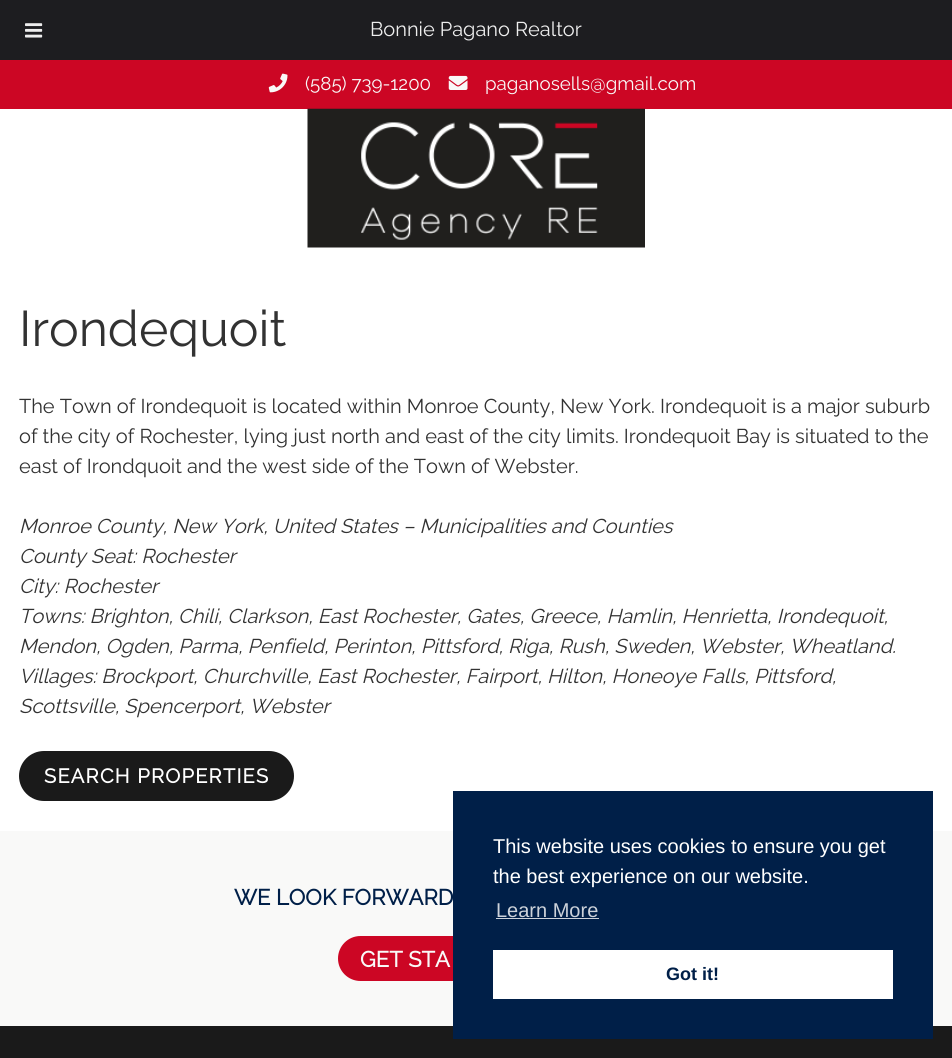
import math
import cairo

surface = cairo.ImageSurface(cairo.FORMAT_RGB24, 952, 1058)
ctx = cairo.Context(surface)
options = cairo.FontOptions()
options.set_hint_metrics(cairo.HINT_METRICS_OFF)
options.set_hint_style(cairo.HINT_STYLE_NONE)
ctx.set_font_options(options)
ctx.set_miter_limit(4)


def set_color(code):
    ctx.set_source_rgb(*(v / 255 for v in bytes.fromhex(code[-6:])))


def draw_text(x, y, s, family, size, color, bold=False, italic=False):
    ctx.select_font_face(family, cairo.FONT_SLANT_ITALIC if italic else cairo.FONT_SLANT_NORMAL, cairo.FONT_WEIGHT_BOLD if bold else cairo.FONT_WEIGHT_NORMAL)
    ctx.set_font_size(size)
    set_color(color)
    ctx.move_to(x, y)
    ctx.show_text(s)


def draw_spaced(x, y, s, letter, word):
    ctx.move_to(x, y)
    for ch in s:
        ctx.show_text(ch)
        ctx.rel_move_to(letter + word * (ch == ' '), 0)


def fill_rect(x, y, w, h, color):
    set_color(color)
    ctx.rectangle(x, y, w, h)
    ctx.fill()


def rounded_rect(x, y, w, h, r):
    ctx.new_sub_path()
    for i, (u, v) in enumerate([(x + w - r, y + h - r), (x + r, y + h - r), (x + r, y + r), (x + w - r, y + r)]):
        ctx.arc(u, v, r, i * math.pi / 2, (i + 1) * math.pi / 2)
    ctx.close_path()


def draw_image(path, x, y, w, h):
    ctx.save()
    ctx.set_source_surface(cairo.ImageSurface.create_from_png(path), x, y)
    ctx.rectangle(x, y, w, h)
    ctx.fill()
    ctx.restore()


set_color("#ffffff")
ctx.paint()
fill_rect(0, 0, 952, 60, "#1d1d20")
draw_image("assets/img1.png", 25, 23, 18, 15)
draw_text(370, 36, "Bonnie Pagano Realtor", "Raleway Thin", 20, "#eeeeee")
fill_rect(0, 60, 952, 49, "#cc0624")
draw_image("assets/img2.png", 268, 73, 20, 20)
draw_text(305, 90, "(585) 739-1200", "Raleway Thin", 18.75, "#f9f9f8")
draw_image("assets/img3.png", 448, 75, 20, 15)
draw_text(485, 90, "paganosells@gmail.com", "Raleway Thin", 18.75, "#f9f9f8")
draw_image("assets/img4.png", 307, 108, 338, 140)
draw_text(19, 346, "Irondequoit", "Raleway Thin", 50, "#323232")
draw_text(19, 413, "The Town of Irondequoit is located within Monroe County, New York. Irondequoit is a major suburb", "Raleway Thin", 20, "#323232")
draw_text(19, 443, "of the city of Rochester, lying just north and east of the city limits. Irondequoit Bay is situated to the", "Raleway Thin", 20, "#323232")
draw_text(19, 473, "east of Irondquoit and the west side of the Town of Webster.", "Raleway Thin", 20, "#323232")
draw_text(19, 533, "Monroe County, New York, United States – Municipalities and Counties", "Raleway Thin", 20, "#323232", italic=True)
draw_text(19, 563, "County Seat: Rochester", "Raleway Thin", 20, "#323232", italic=True)
draw_text(19, 593, "City: Rochester", "Raleway Thin", 20, "#323232", italic=True)
draw_text(19, 623, "Towns: Brighton, Chili, Clarkson, East Rochester, Gates, Greece, Hamlin, Henrietta, Irondequoit,", "Raleway Thin", 20, "#323232", italic=True)
draw_text(19, 653, "Mendon, Ogden, Parma, Penfield, Perinton, Pittsford, Riga, Rush, Sweden, Webster, Wheatland.", "Raleway Thin", 20, "#323232", italic=True)
draw_text(19, 683, "Villages: Brockport, Churchville, East Rochester, Fairport, Hilton, Honeoye Falls, Pittsford,", "Raleway Thin", 20, "#323232", italic=True)
draw_text(19, 713, "Scottsville, Spencerport, Webster", "Raleway Thin", 20, "#323232", italic=True)
set_color("#1a1a1a")
rounded_rect(19, 751, 275, 50, 25)
ctx.fill()
ctx.select_font_face("Raleway", cairo.FONT_SLANT_NORMAL, cairo.FONT_WEIGHT_BOLD)
set_color("#ffffff")
draw_spaced(44, 783, "SEARCH PROPERTIES", 1.25, 0)
fill_rect(0, 831, 952, 195, "#f9f9f8")
draw_text(234, 905, "WE LOOK FORWARD", "Raleway", 22, "#001f48", bold=True)
set_color("#cc0624")
rounded_rect(338, 936, 277, 45, 22.5)
ctx.fill()
draw_text(360, 967, "GET STA", "Raleway", 22, "#f9f9f8", bold=True)
fill_rect(0, 1026, 952, 32, "#1a1a1a")
fill_rect(453, 791, 480, 248, "#001f48")
draw_text(493, 853, "This website uses cookies to ensure you get", "Liberation Sans", 20, "#ffffff")
draw_text(493, 883, "the best experience on our website.", "Liberation Sans", 20, "#ffffff")
draw_text(496, 917, "Learn More", "Liberation Sans", 20, "#ccd2da")
fill_rect(496, 918, 103, 1, "#ccd2da")
fill_rect(493, 950, 400, 49, "#ffffff")
draw_text(666, 980, "Got it!", "Liberation Sans", 18, "#001f48", bold=True)
surface.write_to_png("output.png")
